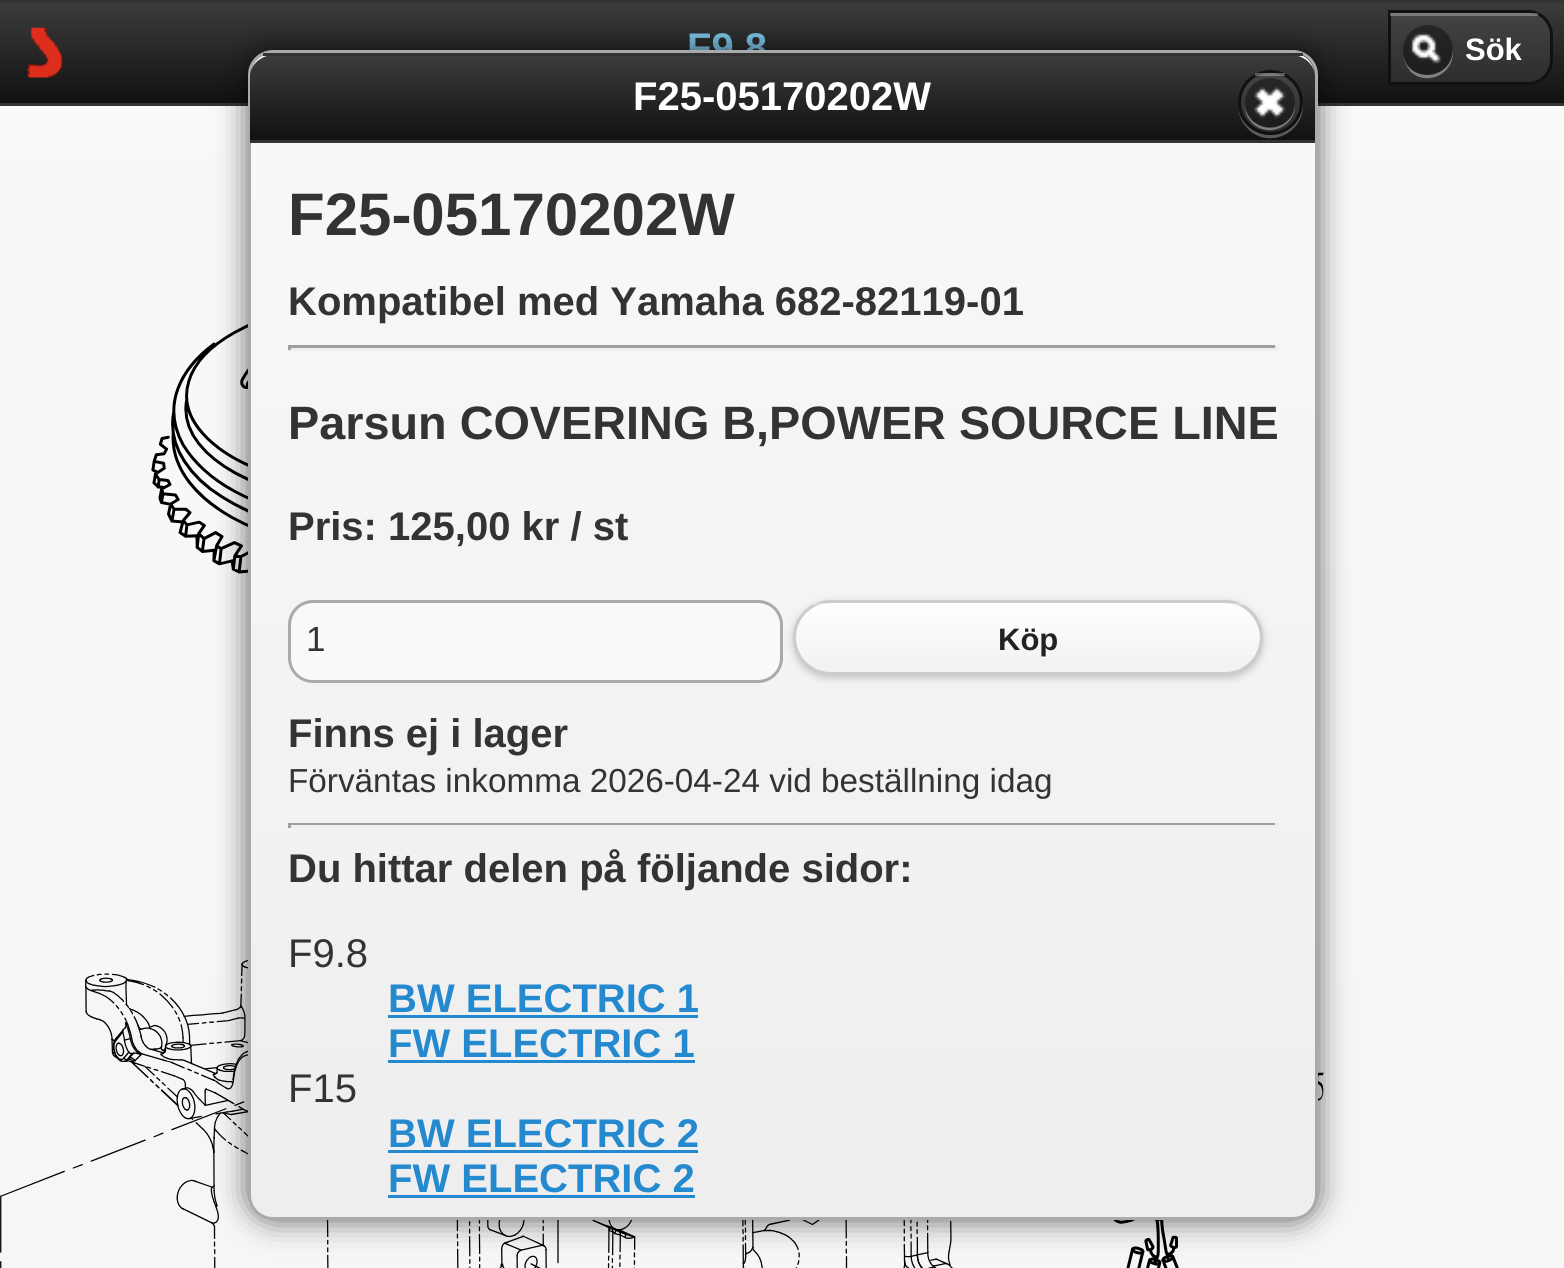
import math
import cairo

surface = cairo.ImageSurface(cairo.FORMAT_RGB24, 1564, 1268)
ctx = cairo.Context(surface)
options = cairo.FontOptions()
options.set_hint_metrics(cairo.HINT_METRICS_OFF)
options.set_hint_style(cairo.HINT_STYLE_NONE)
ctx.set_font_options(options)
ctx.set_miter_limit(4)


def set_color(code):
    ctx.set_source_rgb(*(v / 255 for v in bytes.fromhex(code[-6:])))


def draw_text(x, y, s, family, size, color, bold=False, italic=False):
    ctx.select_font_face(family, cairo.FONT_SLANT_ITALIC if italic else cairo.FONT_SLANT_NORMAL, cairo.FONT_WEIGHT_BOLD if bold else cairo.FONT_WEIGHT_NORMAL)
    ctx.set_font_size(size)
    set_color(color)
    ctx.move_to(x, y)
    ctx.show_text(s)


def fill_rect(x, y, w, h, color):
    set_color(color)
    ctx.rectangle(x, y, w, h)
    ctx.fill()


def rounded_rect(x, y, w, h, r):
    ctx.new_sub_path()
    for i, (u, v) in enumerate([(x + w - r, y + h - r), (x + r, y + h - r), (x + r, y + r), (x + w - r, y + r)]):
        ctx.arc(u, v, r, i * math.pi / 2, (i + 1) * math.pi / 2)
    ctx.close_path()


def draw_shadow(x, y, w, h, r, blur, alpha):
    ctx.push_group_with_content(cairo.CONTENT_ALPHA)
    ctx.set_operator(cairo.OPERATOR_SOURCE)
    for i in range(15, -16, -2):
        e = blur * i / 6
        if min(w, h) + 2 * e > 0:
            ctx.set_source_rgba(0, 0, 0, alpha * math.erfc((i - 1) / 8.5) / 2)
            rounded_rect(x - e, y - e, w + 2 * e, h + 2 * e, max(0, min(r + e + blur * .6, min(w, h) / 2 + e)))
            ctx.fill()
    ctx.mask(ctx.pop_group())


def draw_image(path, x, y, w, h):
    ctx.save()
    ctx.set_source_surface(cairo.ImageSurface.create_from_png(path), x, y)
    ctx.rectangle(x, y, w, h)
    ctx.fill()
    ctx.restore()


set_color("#ffffff")
ctx.paint()
gradient = cairo.LinearGradient(782, 0, 783, 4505)
gradient.add_color_stop_rgba(0, 0.976, 0.976, 0.976, 1)
gradient.add_color_stop_rgba(1, 0.933, 0.933, 0.933, 1)
ctx.set_source(gradient)
ctx.rectangle(0, 106, 1564, 1162)
ctx.fill()
gradient = cairo.LinearGradient(783, 2.5, 783, 103)
gradient.add_color_stop_rgba(0, 0.235, 0.235, 0.235, 1)
gradient.add_color_stop_rgba(1, 0.067, 0.067, 0.067, 1)
ctx.set_source(gradient)
ctx.rectangle(0, 3, 1564, 100)
ctx.fill()
fill_rect(0, 0, 1564, 3, "#333333")
fill_rect(0, 103, 1564, 3, "#333333")
draw_image("assets/img1.png", 27, 27, 36, 51)
draw_text(687, 61, "F9.8", "Liberation Sans", 40, "#7cc4e7", bold=True)
gradient = cairo.LinearGradient(1470, 12, 1470, 83)
gradient.add_color_stop_rgba(0, 0.267, 0.267, 0.267, 1)
gradient.add_color_stop_rgba(1, 0.176, 0.176, 0.176, 1)
ctx.set_source(gradient)
ctx.new_path()
ctx.move_to(1390, 13)
ctx.line_to(1527, 13)
ctx.curve_to(1539.5, 13, 1550, 23.5, 1550, 36)
ctx.line_to(1550, 60)
ctx.curve_to(1550, 72.5, 1539.5, 83, 1527, 83)
ctx.line_to(1390, 83)
ctx.close_path()
ctx.fill()
ctx.new_path()
ctx.move_to(1389.5, 11.5)
ctx.line_to(1528, 11.5)
ctx.curve_to(1541, 11.5, 1551.5, 22, 1551.5, 35)
ctx.line_to(1551.5, 60)
ctx.curve_to(1551.5, 73, 1541, 83.5, 1528, 83.5)
ctx.line_to(1389.5, 83.5)
ctx.close_path()
set_color("#111111")
ctx.set_line_width(3)
ctx.stroke()
ctx.set_source_rgba(1, 1, 1, 0.3)
ctx.rectangle(1390, 13, 148, 3)
ctx.fill()
ctx.set_source_rgba(1, 1, 1, 0.4)
ctx.new_path()
ctx.move_to(1403, 56)
ctx.curve_to(1404, 62, 1407, 67, 1411, 72)
ctx.curve_to(1429, 88, 1458, 71, 1452, 47)
ctx.curve_to(1456, 78, 1410, 86, 1403, 56)
ctx.close_path()
ctx.fill()
ctx.set_source_rgba(0, 0, 0, 0.4)
ctx.arc(1428, 50, 25, 0, 2 * math.pi)
ctx.fill()
draw_image("assets/img2.png", 1410, 32, 31, 32)
draw_text(1465, 60, "Sök", "Liberation Sans", 31, "#ffffff", bold=True)
draw_image("assets/img4.png", 0, 324, 1324, 944)
set_color("#000000")
draw_shadow(248, 50, 1070, 1170, 25, 15, 0.6)
gradient = cairo.LinearGradient(782, 52, 783, 1218)
gradient.add_color_stop_rgba(0, 0.976, 0.976, 0.976, 1)
gradient.add_color_stop_rgba(1, 0.933, 0.933, 0.933, 1)
ctx.set_source(gradient)
rounded_rect(250, 53, 1065, 1165, 23)
ctx.fill()
rounded_rect(249.5, 51.5, 1067, 1167, 23.5)
set_color("#aaaaaa")
ctx.stroke()
gradient = cairo.LinearGradient(783, 55, 783, 140)
gradient.add_color_stop_rgba(0, 0.235, 0.235, 0.235, 1)
gradient.add_color_stop_rgba(1, 0.067, 0.067, 0.067, 1)
ctx.set_source(gradient)
ctx.new_path()
ctx.move_to(274, 55)
ctx.line_to(1291, 55)
ctx.curve_to(1304, 55, 1315, 65, 1315, 76)
ctx.line_to(1315, 140)
ctx.line_to(250, 140)
ctx.line_to(250, 76)
ctx.curve_to(250, 65, 261, 55, 274, 55)
ctx.close_path()
ctx.fill()
fill_rect(263, 53, 1040, 3, "#333333")
fill_rect(250, 140, 1065, 3, "#333333")
draw_text(633, 110, "F25-05170202W", "Liberation Sans", 40, "#ffffff", bold=True)
ctx.set_source_rgba(1, 1, 1, 0.3)
ctx.new_path()
ctx.move_to(1238, 109)
ctx.curve_to(1239, 117, 1243, 124, 1249, 130)
ctx.curve_to(1272, 151, 1309, 129, 1302, 99)
ctx.curve_to(1303, 106, 1301, 114, 1297, 121)
ctx.curve_to(1281, 144, 1244, 137, 1238, 109)
ctx.close_path()
ctx.fill()
gradient = cairo.LinearGradient(1270, 73, 1270, 133)
gradient.add_color_stop_rgba(0, 0.267, 0.267, 0.267, 1)
gradient.add_color_stop_rgba(1, 0.176, 0.176, 0.176, 1)
ctx.set_source(gradient)
ctx.arc(1270, 103, 30, 0, 2 * math.pi)
ctx.fill()
ctx.arc(1270.5, 102.5, 31, 0, 2 * math.pi)
set_color("#111111")
ctx.stroke()
ctx.set_source_rgba(1, 1, 1, 0.3)
ctx.rectangle(1255, 73, 30, 3)
ctx.fill()
ctx.set_source_rgba(1, 1, 1, 0.4)
ctx.new_path()
ctx.move_to(1295, 104)
ctx.curve_to(1293, 135, 1247, 135, 1245, 104)
ctx.curve_to(1245, 109, 1246, 115, 1249, 119)
ctx.curve_to(1263, 140, 1296, 129, 1295, 104)
ctx.close_path()
ctx.fill()
ctx.set_source_rgba(0, 0, 0, 0.4)
ctx.arc(1270, 103, 25, 0, 2 * math.pi)
ctx.fill()
draw_image("assets/img3.png", 1254, 86, 32, 33)
draw_text(288, 235, "F25-05170202W", "Liberation Sans", 60, "#333333", bold=True)
draw_text(288, 315, "Kompatibel med Yamaha 682-82119-01", "Liberation Sans", 40, "#333333", bold=True)
fill_rect(288, 345, 990, 3, "#9f9f9f")
fill_rect(1275, 345, 3, 5, "#eeeeee")
fill_rect(288, 348, 990, 3, "#eeeeee")
fill_rect(288, 345, 3, 5, "#9f9f9f")
draw_text(288, 439, "Parsun COVERING B,POWER SOURCE LINE", "Liberation Sans", 46.8, "#333333", bold=True)
draw_text(288, 540, "Pris: 125,00 kr / st", "Liberation Sans", 40, "#333333", bold=True)
set_color("#f9f9f9")
rounded_rect(289.5, 601.5, 492, 80, 23.5)
ctx.fill_preserve()
set_color("#aaaaaa")
ctx.stroke()
draw_text(306, 651, "1", "Liberation Sans", 35, "#333333")
set_color("#000000")
draw_shadow(793, 603, 470, 75, 37.5, 4, 0.2)
gradient = cairo.LinearGradient(1028, 603, 1028, 673)
gradient.add_color_stop_rgba(0, 1, 1, 1, 1)
gradient.add_color_stop_rgba(1, 0.945, 0.945, 0.945, 1)
ctx.set_source(gradient)
rounded_rect(795, 603, 465, 70, 35)
ctx.fill()
rounded_rect(794.5, 601.5, 467, 72, 36)
set_color("#cccccc")
ctx.stroke()
ctx.set_source_rgba(1, 1, 1, 0.3)
ctx.rectangle(813, 603, 430, 3)
ctx.fill()
draw_text(998, 650, "Köp", "Liberation Sans", 31, "#222222", bold=True)
draw_text(288, 747, "Finns ej i lager", "Liberation Sans", 40, "#333333", bold=True)
draw_text(288, 792, "Förväntas inkomma 2026-04-24 vid beställning idag", "Liberation Sans", 33.3, "#333333")
fill_rect(288, 823, 990, 2, "#9f9f9f")
fill_rect(1275, 823, 3, 5, "#eeeeee")
fill_rect(288, 825, 990, 3, "#eeeeee")
fill_rect(288, 823, 3, 5, "#9f9f9f")
draw_text(288, 882, "Du hittar delen på följande sidor:", "Liberation Sans", 40, "#333333", bold=True)
draw_text(288, 967, "F9.8", "Liberation Sans", 40, "#333333")
draw_text(388, 1012, "BW ELECTRIC 1", "Liberation Sans", 40, "#2489ce", bold=True)
fill_rect(388, 1015, 310, 3, "#2489ce")
draw_text(388, 1057, "FW ELECTRIC 1", "Liberation Sans", 40, "#2489ce", bold=True)
fill_rect(388, 1060, 307, 3, "#2489ce")
draw_text(288, 1102, "F15", "Liberation Sans", 40, "#333333")
draw_text(388, 1147, "BW ELECTRIC 2", "Liberation Sans", 40, "#2489ce", bold=True)
fill_rect(388, 1150, 310, 3, "#2489ce")
draw_text(388, 1192, "FW ELECTRIC 2", "Liberation Sans", 40, "#2489ce", bold=True)
fill_rect(388, 1195, 307, 3, "#2489ce")
surface.write_to_png("output.png")
